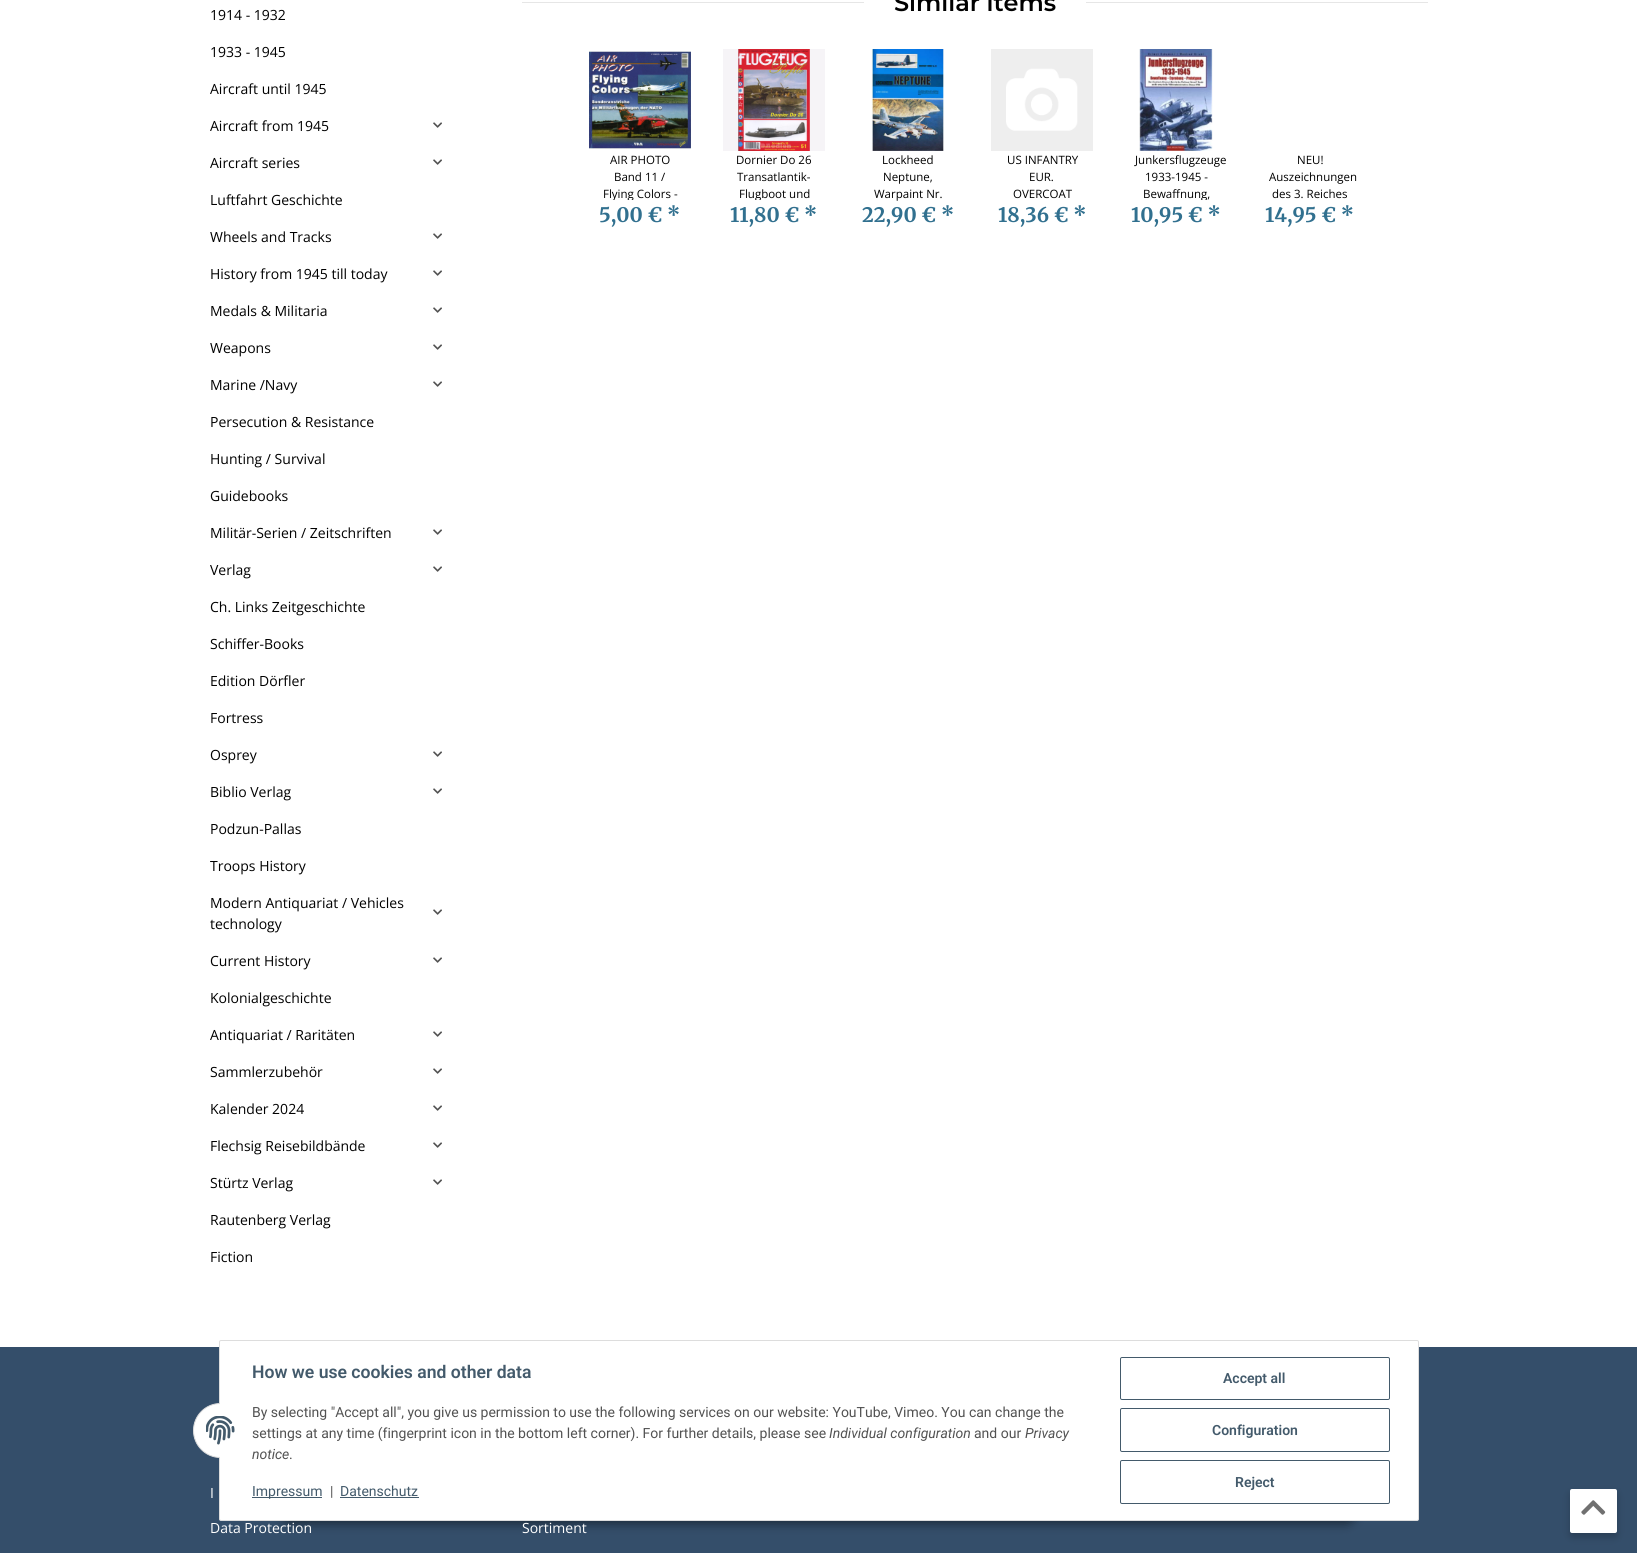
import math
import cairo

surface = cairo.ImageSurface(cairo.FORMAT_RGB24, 1637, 1553)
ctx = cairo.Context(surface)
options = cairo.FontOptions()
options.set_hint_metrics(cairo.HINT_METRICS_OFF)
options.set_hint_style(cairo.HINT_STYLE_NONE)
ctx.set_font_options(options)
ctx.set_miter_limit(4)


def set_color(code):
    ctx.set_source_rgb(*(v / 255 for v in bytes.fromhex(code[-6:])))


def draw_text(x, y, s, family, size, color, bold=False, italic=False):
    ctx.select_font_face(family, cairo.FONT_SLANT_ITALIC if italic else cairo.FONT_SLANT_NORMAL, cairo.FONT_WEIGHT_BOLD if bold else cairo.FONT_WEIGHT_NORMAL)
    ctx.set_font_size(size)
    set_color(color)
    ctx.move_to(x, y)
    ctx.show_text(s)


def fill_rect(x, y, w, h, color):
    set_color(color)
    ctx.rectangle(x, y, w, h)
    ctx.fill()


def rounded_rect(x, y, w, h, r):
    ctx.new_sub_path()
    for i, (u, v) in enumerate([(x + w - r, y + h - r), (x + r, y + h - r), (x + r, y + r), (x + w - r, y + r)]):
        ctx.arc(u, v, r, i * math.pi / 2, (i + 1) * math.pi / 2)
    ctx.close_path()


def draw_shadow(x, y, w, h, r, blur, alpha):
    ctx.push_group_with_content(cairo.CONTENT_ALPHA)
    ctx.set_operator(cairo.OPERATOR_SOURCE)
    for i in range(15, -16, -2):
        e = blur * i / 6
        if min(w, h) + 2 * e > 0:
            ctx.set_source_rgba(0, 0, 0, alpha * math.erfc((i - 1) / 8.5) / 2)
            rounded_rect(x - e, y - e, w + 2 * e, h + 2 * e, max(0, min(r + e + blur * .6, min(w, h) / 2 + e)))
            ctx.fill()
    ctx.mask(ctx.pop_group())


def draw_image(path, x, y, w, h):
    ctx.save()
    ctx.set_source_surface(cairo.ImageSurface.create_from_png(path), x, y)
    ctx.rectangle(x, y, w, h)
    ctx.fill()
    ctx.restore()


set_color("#ffffff")
ctx.paint()
draw_text(210, 20, "1914 - 1932", "Open Sans", 14, "#000000")
draw_text(210, 57, "1933 - 1945", "Open Sans", 14, "#000000")
draw_text(210, 94, "Aircraft until 1945", "Open Sans", 14, "#000000")
draw_text(210, 131, "Aircraft from 1945", "Open Sans", 14, "#000000")
draw_image("assets/img1.png", 433, 122, 9, 6)
draw_text(210, 168, "Aircraft series", "Open Sans", 14, "#000000")
draw_image("assets/img1.png", 433, 159, 9, 6)
draw_text(210, 205, "Luftfahrt Geschichte", "Open Sans", 14, "#000000")
draw_text(210, 242, "Wheels and Tracks", "Open Sans", 14, "#000000")
draw_image("assets/img1.png", 433, 233, 9, 6)
draw_text(210, 279, "History from 1945 till today", "Open Sans", 14, "#000000")
draw_image("assets/img1.png", 433, 270, 9, 6)
draw_text(210, 316, "Medals & Militaria", "Open Sans", 14, "#000000")
draw_image("assets/img1.png", 433, 307, 9, 6)
draw_text(210, 353, "Weapons", "Open Sans", 14, "#000000")
draw_image("assets/img1.png", 433, 344, 9, 6)
draw_text(210, 390, "Marine /Navy", "Open Sans", 14, "#000000")
draw_image("assets/img1.png", 433, 381, 9, 6)
draw_text(210, 427, "Persecution & Resistance", "Open Sans", 14, "#000000")
draw_text(210, 464, "Hunting / Survival", "Open Sans", 14, "#000000")
draw_text(210, 501, "Guidebooks", "Open Sans", 14, "#000000")
draw_text(210, 538, "Militär-Serien / Zeitschriften", "Open Sans", 14, "#000000")
draw_image("assets/img1.png", 433, 529, 9, 6)
draw_text(210, 575, "Verlag", "Open Sans", 14, "#000000")
draw_image("assets/img1.png", 433, 566, 9, 6)
draw_text(210, 612, "Ch. Links Zeitgeschichte", "Open Sans", 14, "#000000")
draw_text(210, 649, "Schiffer-Books", "Open Sans", 14, "#000000")
draw_text(210, 686, "Edition Dörfler", "Open Sans", 14, "#000000")
draw_text(210, 723, "Fortress", "Open Sans", 14, "#000000")
draw_text(210, 760, "Osprey", "Open Sans", 14, "#000000")
draw_image("assets/img1.png", 433, 751, 9, 6)
draw_text(210, 797, "Biblio Verlag", "Open Sans", 14, "#000000")
draw_image("assets/img1.png", 433, 788, 9, 6)
draw_text(210, 834, "Podzun-Pallas", "Open Sans", 14, "#000000")
draw_text(210, 871, "Troops History", "Open Sans", 14, "#000000")
draw_text(210, 908, "Modern Antiquariat / Vehicles", "Open Sans", 14, "#000000")
draw_text(210, 929, "technology", "Open Sans", 14, "#000000")
draw_image("assets/img1.png", 433, 909, 9, 6)
draw_text(210, 966, "Current History", "Open Sans", 14, "#000000")
draw_image("assets/img1.png", 433, 957, 9, 6)
draw_text(210, 1003, "Kolonialgeschichte", "Open Sans", 14, "#000000")
draw_text(210, 1040, "Antiquariat / Raritäten", "Open Sans", 14, "#000000")
draw_image("assets/img1.png", 433, 1031, 9, 6)
draw_text(210, 1077, "Sammlerzubehör", "Open Sans", 14, "#000000")
draw_image("assets/img1.png", 433, 1068, 9, 6)
draw_text(210, 1114, "Kalender 2024", "Open Sans", 14, "#000000")
draw_image("assets/img1.png", 433, 1105, 9, 6)
draw_text(210, 1151, "Flechsig Reisebildbände", "Open Sans", 14, "#000000")
draw_image("assets/img1.png", 433, 1142, 9, 6)
draw_text(210, 1188, "Stürtz Verlag", "Open Sans", 14, "#000000")
draw_image("assets/img1.png", 433, 1179, 9, 6)
draw_text(210, 1225, "Rautenberg Verlag", "Open Sans", 14, "#000000")
draw_text(210, 1262, "Fiction", "Open Sans", 14, "#000000")
fill_rect(522, 2, 342, 1, "#e6e6e6")
draw_text(894, 11, "Similar items", "Montserrat SemiBold", 24, "#000000")
fill_rect(1086, 2, 342, 1, "#e6e6e6")
draw_image("assets/img2.png", 589, 51, 102, 98)
draw_text(610, 164, "AIR PHOTO", "Open Sans", 11.5, "#000000")
draw_text(614, 181, "Band 11 /", "Open Sans", 11.5, "#000000")
ctx.save()
ctx.rectangle(589, 151, 102, 49)
ctx.clip()
draw_text(603, 198, "Flying Colors -", "Open Sans", 11.5, "#000000")
ctx.restore()
draw_text(599, 222, "5,00 € *", "Merriweather", 20, "#31708f", bold=True)
draw_image("assets/img3.png", 723, 49, 102, 102)
draw_text(736, 164, "Dornier Do 26", "Open Sans", 11.5, "#000000")
draw_text(737, 181, "Transatlantik-", "Open Sans", 11.5, "#000000")
ctx.save()
ctx.rectangle(723, 151, 102, 49)
ctx.clip()
draw_text(739, 198, "Flugboot und", "Open Sans", 11.5, "#000000")
ctx.restore()
draw_text(730, 222, "11,80 € *", "Merriweather", 20, "#31708f", bold=True)
draw_image("assets/img4.png", 871, 49, 73, 102)
draw_text(882, 164, "Lockheed", "Open Sans", 11.5, "#000000")
draw_text(883, 181, "Neptune,", "Open Sans", 11.5, "#000000")
draw_text(874, 198, "Warpaint Nr.", "Open Sans", 11.5, "#000000")
draw_text(862, 222, "22,90 € *", "Merriweather", 20, "#31708f", bold=True)
draw_image("assets/img5.png", 991, 49, 102, 102)
draw_text(1007, 164, "US INFANTRY", "Open Sans", 11.5, "#000000")
draw_text(1029, 181, "EUR.", "Open Sans", 11.5, "#000000")
draw_text(1013, 198, "OVERCOAT", "Open Sans", 11.5, "#000000")
draw_text(998, 222, "18,36 € *", "Merriweather", 20, "#31708f", bold=True)
draw_image("assets/img6.png", 1139, 49, 74, 102)
draw_text(1135, 164, "Junkersflugzeuge", "Open Sans", 11.5, "#000000")
draw_text(1145, 181, "1933-1945 -", "Open Sans", 11.5, "#000000")
ctx.save()
ctx.rectangle(1125, 151, 102, 49)
ctx.clip()
draw_text(1143, 198, "Bewaffnung,", "Open Sans", 11.5, "#000000")
ctx.restore()
draw_text(1131, 222, "10,95 € *", "Merriweather", 20, "#31708f", bold=True)
draw_text(1297, 164, "NEU!", "Open Sans", 11.5, "#000000")
draw_text(1269, 181, "Auszeichnungen", "Open Sans", 11.5, "#000000")
draw_text(1272, 198, "des 3. Reiches", "Open Sans", 11.5, "#000000")
draw_text(1265, 222, "14,95 € *", "Merriweather", 20, "#31708f", bold=True)
fill_rect(0, 1347, 1637, 206, "#344e6a")
set_color("#000000")
draw_shadow(279, 1492, 1079, 32, 16, 5, 0.45)
set_color("#ffffff")
rounded_rect(219.5, 1340.5, 1199, 180, 1.5)
ctx.fill_preserve()
set_color("#dddddd")
ctx.set_line_width(1)
ctx.stroke()
set_color("#ffffff")
ctx.arc(220.5, 1430.5, 27, 0, 2 * math.pi)
ctx.fill_preserve()
set_color("#dddddd")
ctx.stroke()
fill_rect(220, 1403, 28, 55, "#ffffff")
draw_image("assets/img7.png", 206, 1416, 29, 29)
draw_text(252, 1378, "How we use cookies and other data", "Roboto SemiBold", 17.6, "#435a6b")
draw_text(252, 1417, "By selecting \"Accept all\", you give us permission to use the following services on our website: YouTube, Vimeo. You can change the", "Roboto", 14, "#525252")
draw_text(252, 1438, "settings at any time (fingerprint icon in the bottom left corner). For further details, please see", "Roboto", 14, "#525252")
draw_text(829, 1438, "Individual configuration", "Roboto", 14, "#525252", italic=True)
draw_text(974, 1438, "and our", "Roboto", 14, "#525252")
draw_text(1025, 1438, "Privacy", "Roboto", 14, "#525252", italic=True)
draw_text(252, 1459, "notice", "Roboto", 14, "#525252", italic=True)
draw_text(289, 1459, ".", "Roboto", 14, "#525252")
fill_rect(252, 1497, 70, 1, "#435a6b")
draw_text(252, 1496, "Impressum", "Roboto", 14, "#435a6b")
draw_text(330, 1496, "|", "Roboto", 14, "#525252")
draw_text(340, 1496, "Datenschutz", "Roboto", 14, "#435a6b")
fill_rect(340, 1497, 79, 1, "#435a6b")
rounded_rect(1120.5, 1357.5, 269, 42, 1.5)
ctx.stroke()
draw_text(1223, 1383, "Accept all", "Roboto SemiBold", 14, "#435a6b")
rounded_rect(1120.5, 1408.5, 269, 43, 1.5)
ctx.stroke()
draw_text(1212, 1435, "Configuration", "Roboto SemiBold", 14, "#435a6b")
rounded_rect(1120.5, 1460.5, 269, 43, 1.5)
ctx.stroke()
draw_text(1235, 1487, "Reject", "Roboto SemiBold", 14, "#435a6b")
draw_text(210, 1498, "I", "Open Sans", 14, "#ffffff")
draw_text(210, 1533, "Data Protection", "Open Sans", 14, "#ffffff")
draw_text(522, 1533, "Sortiment", "Open Sans", 14, "#ffffff")
set_color("#000000")
draw_shadow(1570, 1493, 47, 44, 2, 4, 0.2)
set_color("#ffffff")
rounded_rect(1570, 1489, 47, 44, 2)
ctx.fill()
draw_image("assets/img8.png", 1581, 1500, 25, 15)
surface.write_to_png("output.png")
